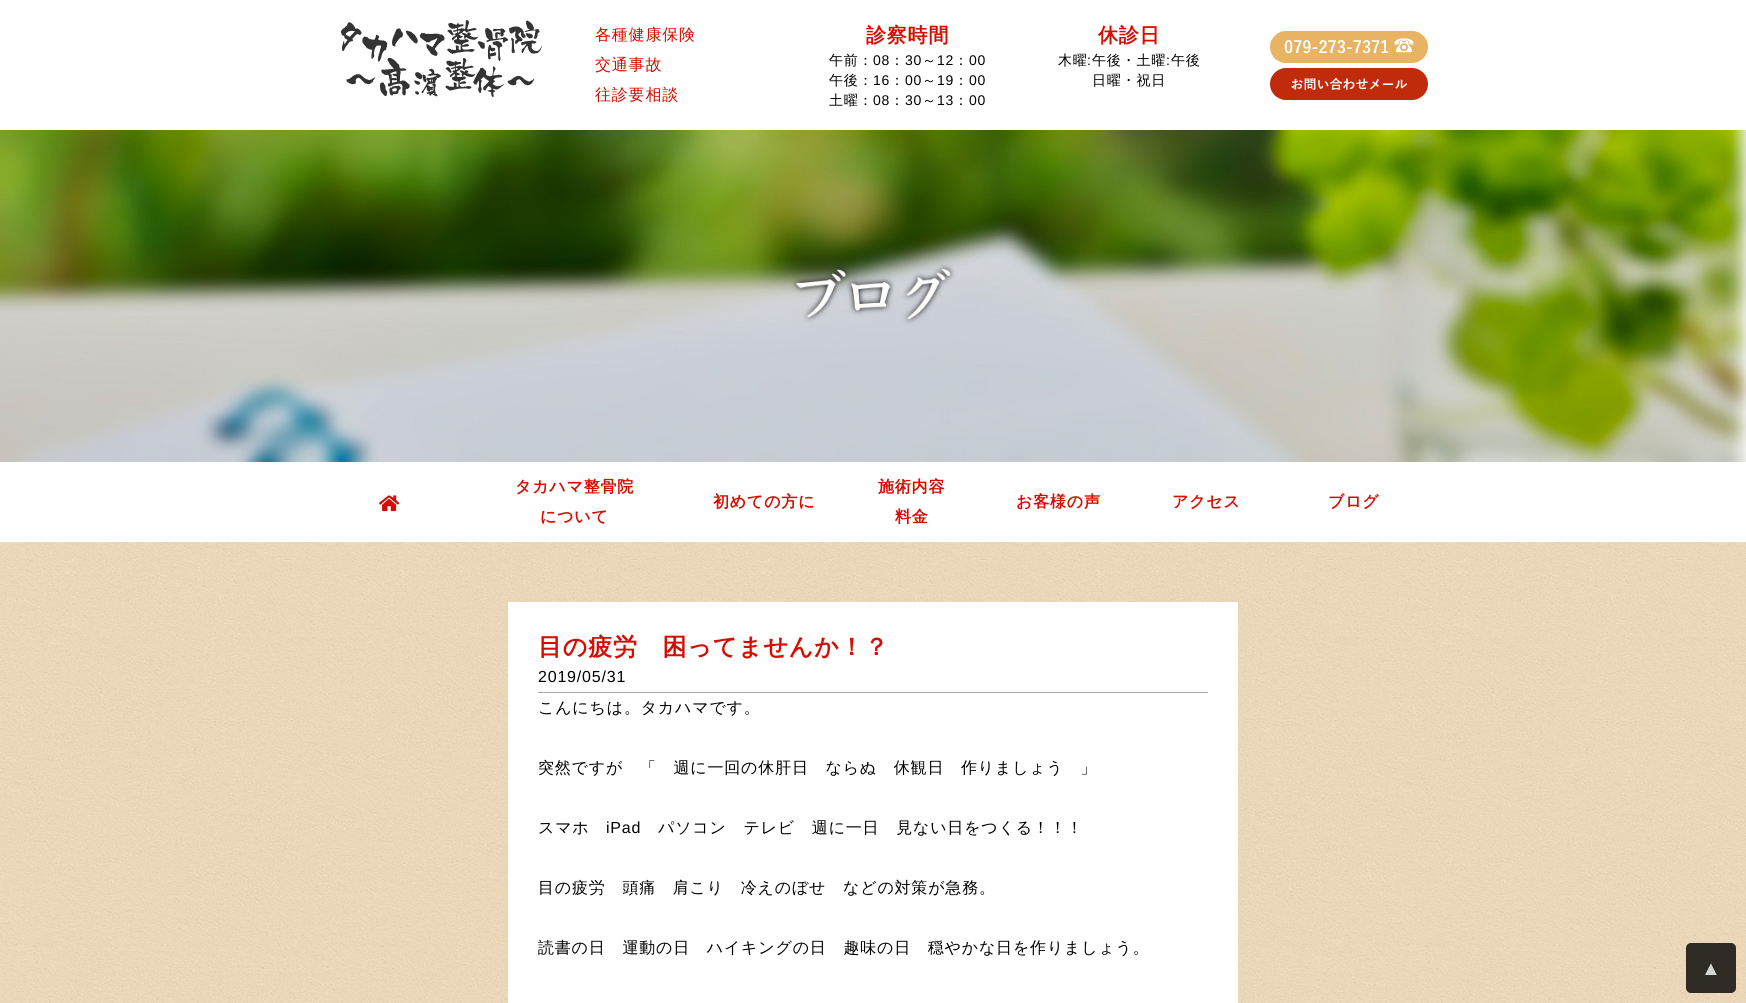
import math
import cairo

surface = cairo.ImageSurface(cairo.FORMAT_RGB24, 1746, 1003)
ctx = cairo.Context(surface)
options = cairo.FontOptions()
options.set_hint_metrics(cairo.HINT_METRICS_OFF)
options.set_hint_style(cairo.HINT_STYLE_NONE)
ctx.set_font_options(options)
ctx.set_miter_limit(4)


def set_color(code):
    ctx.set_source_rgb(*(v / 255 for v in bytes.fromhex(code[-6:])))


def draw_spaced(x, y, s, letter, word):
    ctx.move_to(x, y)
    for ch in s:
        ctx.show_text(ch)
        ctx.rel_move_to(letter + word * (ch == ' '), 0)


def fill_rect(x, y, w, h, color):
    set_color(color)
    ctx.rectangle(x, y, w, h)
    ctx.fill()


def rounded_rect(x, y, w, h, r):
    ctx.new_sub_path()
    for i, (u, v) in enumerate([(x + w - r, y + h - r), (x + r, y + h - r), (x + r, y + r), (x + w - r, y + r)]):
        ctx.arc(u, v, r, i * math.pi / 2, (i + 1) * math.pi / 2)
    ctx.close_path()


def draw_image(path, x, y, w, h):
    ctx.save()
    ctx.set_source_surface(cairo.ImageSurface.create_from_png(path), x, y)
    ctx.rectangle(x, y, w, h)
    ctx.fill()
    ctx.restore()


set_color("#ffffff")
ctx.paint()
draw_image("assets/img1.png", 341, 20, 201, 77)
ctx.select_font_face("WenQuanYi Zen Hei Medium")
ctx.set_font_size(16)
set_color("#d50d00")
draw_spaced(595, 40, "各種健康保険", 0.8, 0)
draw_spaced(595, 70, "交通事故", 0.8, 0)
draw_spaced(595, 100, "往診要相談", 0.8, 0)
ctx.select_font_face("WenQuanYi Zen Hei", cairo.FONT_SLANT_NORMAL, cairo.FONT_WEIGHT_BOLD)
ctx.set_font_size(20)
draw_spaced(866, 42, "診察時間", 0.8, 0)
ctx.select_font_face("WenQuanYi Zen Hei Medium")
ctx.set_font_size(14)
set_color("#000000")
draw_spaced(829, 65, "午前：", 0.8, 0)
ctx.select_font_face("Liberation Sans")
draw_spaced(873, 65, "08", 0.8, 0)
ctx.select_font_face("WenQuanYi Zen Hei Medium")
draw_spaced(890, 65, "：", 0.8, 0)
ctx.select_font_face("Liberation Sans")
draw_spaced(905, 65, "30", 0.8, 0)
ctx.select_font_face("WenQuanYi Zen Hei Medium")
draw_spaced(922, 65, "～", 0.8, 0)
ctx.select_font_face("Liberation Sans")
draw_spaced(937, 65, "12", 0.8, 0)
ctx.select_font_face("WenQuanYi Zen Hei Medium")
draw_spaced(954, 65, "：", 0.8, 0)
ctx.select_font_face("Liberation Sans")
draw_spaced(969, 65, "00", 0.8, 0)
ctx.select_font_face("WenQuanYi Zen Hei Medium")
draw_spaced(829, 85, "午後：", 0.8, 0)
ctx.select_font_face("Liberation Sans")
draw_spaced(873, 85, "16", 0.8, 0)
ctx.select_font_face("WenQuanYi Zen Hei Medium")
draw_spaced(890, 85, "：", 0.8, 0)
ctx.select_font_face("Liberation Sans")
draw_spaced(905, 85, "00", 0.8, 0)
ctx.select_font_face("WenQuanYi Zen Hei Medium")
draw_spaced(922, 85, "～", 0.8, 0)
ctx.select_font_face("Liberation Sans")
draw_spaced(937, 85, "19", 0.8, 0)
ctx.select_font_face("WenQuanYi Zen Hei Medium")
draw_spaced(954, 85, "：", 0.8, 0)
ctx.select_font_face("Liberation Sans")
draw_spaced(969, 85, "00", 0.8, 0)
ctx.select_font_face("WenQuanYi Zen Hei Medium")
draw_spaced(829, 105, "土曜：", 0.8, 0)
ctx.select_font_face("Liberation Sans")
draw_spaced(873, 105, "08", 0.8, 0)
ctx.select_font_face("WenQuanYi Zen Hei Medium")
draw_spaced(890, 105, "：", 0.8, 0)
ctx.select_font_face("Liberation Sans")
draw_spaced(905, 105, "30", 0.8, 0)
ctx.select_font_face("WenQuanYi Zen Hei Medium")
draw_spaced(922, 105, "～", 0.8, 0)
ctx.select_font_face("Liberation Sans")
draw_spaced(937, 105, "13", 0.8, 0)
ctx.select_font_face("WenQuanYi Zen Hei Medium")
draw_spaced(954, 105, "：", 0.8, 0)
ctx.select_font_face("Liberation Sans")
draw_spaced(969, 105, "00", 0.8, 0)
ctx.select_font_face("WenQuanYi Zen Hei", cairo.FONT_SLANT_NORMAL, cairo.FONT_WEIGHT_BOLD)
ctx.set_font_size(20)
set_color("#d50d00")
draw_spaced(1098, 42, "休診日", 0.8, 0)
ctx.select_font_face("WenQuanYi Zen Hei Medium")
ctx.set_font_size(14)
set_color("#000000")
draw_spaced(1058, 65, "木曜", 0.8, 0)
ctx.select_font_face("Liberation Sans")
draw_spaced(1087, 65, ":", 0.8, 0)
ctx.select_font_face("WenQuanYi Zen Hei Medium")
draw_spaced(1092, 65, "午後・土曜", 0.8, 0)
ctx.select_font_face("Liberation Sans")
draw_spaced(1166, 65, ":", 0.8, 0)
ctx.select_font_face("WenQuanYi Zen Hei Medium")
draw_spaced(1171, 65, "午後", 0.8, 0)
draw_spaced(1092, 85, "日曜・祝日", 0.8, 0)
draw_image("assets/img2.png", 1270, 31, 158, 32)
draw_image("assets/img3.png", 1270, 68, 158, 32)
draw_image("assets/img4.png", 0, 130, 1746, 332)
draw_image("assets/img5.png", 379, 495, 21, 17)
ctx.select_font_face("WenQuanYi Zen Hei", cairo.FONT_SLANT_NORMAL, cairo.FONT_WEIGHT_BOLD)
ctx.set_font_size(16)
set_color("#d50d00")
draw_spaced(515, 492, "タカハマ整骨院", 0.8, 0)
draw_spaced(540, 522, "について", 0.8, 0)
draw_spaced(713, 507, "初めての方に", 0.8, 0)
draw_spaced(878, 492, "施術内容", 0.8, 0)
draw_spaced(895, 522, "料金", 0.8, 0)
draw_spaced(1016, 507, "お客様の声", 0.8, 0)
draw_spaced(1172, 507, "アクセス", 0.8, 0)
draw_spaced(1328, 507, "ブログ", 0.8, 0)
draw_image("assets/img6.png", 0, 542, 1746, 461)
fill_rect(508, 602, 730, 401, "#ffffff")
ctx.set_font_size(24)
set_color("#d50d00")
draw_spaced(538, 655, "目の疲労　困ってませんか！？", 0.8, 0)
fill_rect(538, 692, 670, 1, "#aaaaaa")
ctx.select_font_face("Liberation Sans")
ctx.set_font_size(16)
set_color("#000000")
draw_spaced(538, 682, "2019/05/31", 0.8, 0)
ctx.select_font_face("WenQuanYi Zen Hei Medium")
draw_spaced(538, 713, "こんにちは。タカハマです。", 0.8, 0)
draw_spaced(538, 773, "突然ですが　「　週に一回の休肝日　ならぬ　休観日　作りましょう　」", 0.8, 0)
draw_spaced(538, 833, "スマホ", 0.8, 0)
ctx.select_font_face("Liberation Sans")
draw_spaced(606, 833, "iPad", 0.8, 0)
ctx.select_font_face("WenQuanYi Zen Hei Medium")
draw_spaced(658, 833, "パソコン　テレビ　週に一日　見ない日をつくる！！！", 0.8, 0)
draw_spaced(538, 893, "目の疲労　頭痛　肩こり　冷えのぼせ　などの対策が急務。", 0.8, 0)
draw_spaced(538, 953, "読書の日　運動の日　ハイキングの日　趣味の日　穏やかな日を作りましょう。", 0.8, 0)
ctx.set_source_rgba(0, 0, 0, 0.8)
rounded_rect(1686, 943, 50, 50, 5)
ctx.fill()
ctx.select_font_face("Liberation Sans")
ctx.set_font_size(20)
set_color("#d5d5d3")
draw_spaced(1701, 975, "▲", 0.8, 0)
surface.write_to_png("output.png")
